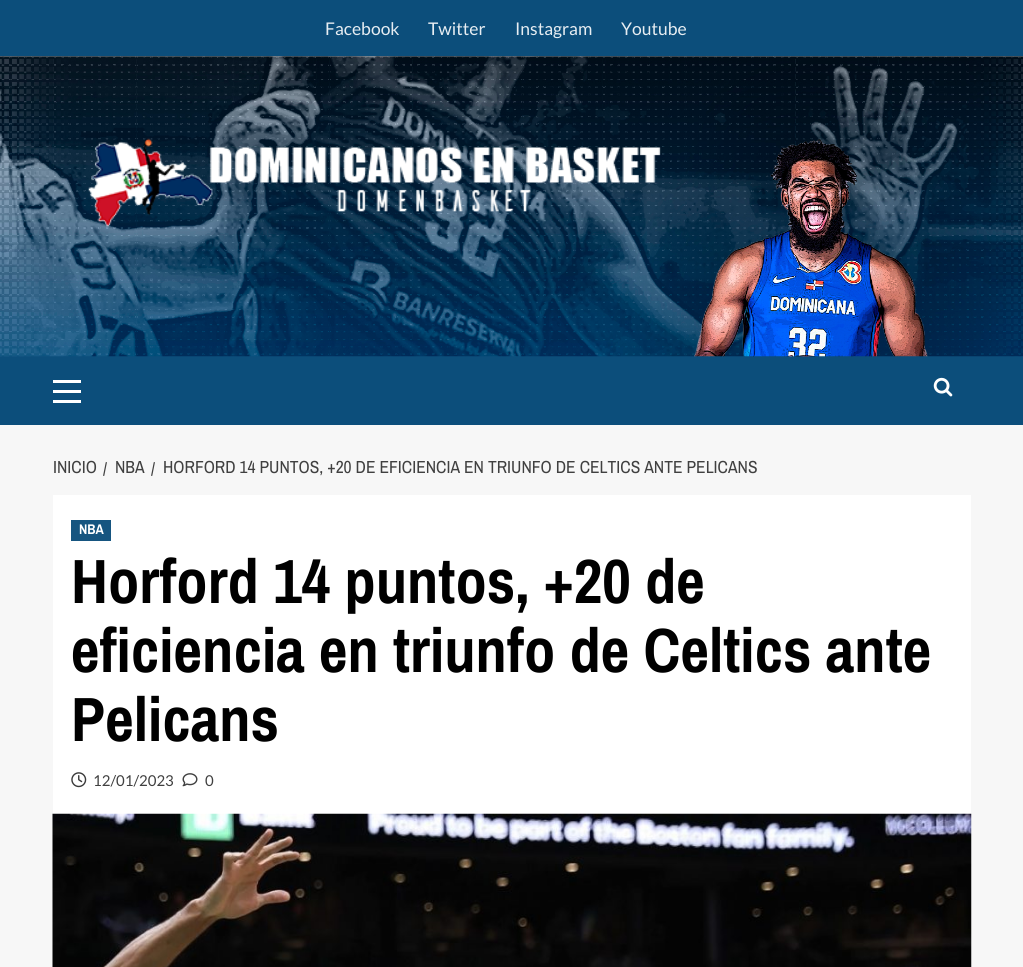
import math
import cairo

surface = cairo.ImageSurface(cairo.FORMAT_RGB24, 1023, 967)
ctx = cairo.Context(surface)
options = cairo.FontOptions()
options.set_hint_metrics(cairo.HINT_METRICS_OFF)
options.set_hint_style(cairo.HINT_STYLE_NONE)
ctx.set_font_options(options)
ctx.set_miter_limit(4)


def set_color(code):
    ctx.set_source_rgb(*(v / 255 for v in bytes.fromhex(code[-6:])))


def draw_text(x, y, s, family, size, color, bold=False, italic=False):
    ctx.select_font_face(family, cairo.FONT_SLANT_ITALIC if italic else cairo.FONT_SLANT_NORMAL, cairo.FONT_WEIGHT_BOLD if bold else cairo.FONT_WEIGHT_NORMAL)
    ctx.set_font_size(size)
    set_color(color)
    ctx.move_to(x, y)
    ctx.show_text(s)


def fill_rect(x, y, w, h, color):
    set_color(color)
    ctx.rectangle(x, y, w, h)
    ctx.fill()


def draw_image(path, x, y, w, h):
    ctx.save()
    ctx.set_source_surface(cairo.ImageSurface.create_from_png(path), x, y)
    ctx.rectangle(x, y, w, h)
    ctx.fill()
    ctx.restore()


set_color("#f7f7f7")
ctx.paint()
fill_rect(0, 0, 1023, 56, "#0c4e7b")
draw_text(325, 35, "Facebook", "Lato", 17.5, "#e7edf2")
draw_text(428, 35, "Twitter", "Lato", 17.5, "#e7edf2")
draw_text(515, 35, "Instagram", "Lato", 17.5, "#e7edf2")
draw_text(621, 35, "Youtube", "Lato", 17.5, "#e7edf2")
fill_rect(0, 356, 1023, 69, "#0c4e7b")
draw_image("assets/img1.png", 0, 56, 1023, 301)
draw_image("assets/img2.png", 88, 138, 573, 89)
fill_rect(53, 390, 28, 3, "#ffffff")
fill_rect(53, 380, 28, 3, "#ffffff")
fill_rect(53, 400, 28, 3, "#ffffff")
draw_image("assets/img3.png", 933, 377, 20, 20)
draw_text(53, 473, "INICIO", "Archivo Narrow", 17.5, "#404040")
draw_text(103, 475, "/", "Archivo Narrow", 17.5, "#404040")
draw_text(115, 473, "NBA", "Archivo Narrow", 17.5, "#404040")
draw_text(151, 475, "/", "Archivo Narrow", 17.5, "#404040")
draw_text(163, 473, "HORFORD 14 PUNTOS, +20 DE EFICIENCIA EN TRIUNFO DE CELTICS ANTE PELICANS", "Archivo Narrow", 17.5, "#404040")
fill_rect(53, 495, 918, 319, "#ffffff")
fill_rect(71, 520, 40, 21, "#165580")
draw_text(79, 534, "NBA", "Archivo Narrow", 14, "#ffffff", bold=True)
draw_text(71, 603, "Horford 14 puntos, +20 de", "Archivo Narrow", 62.5, "#000000", bold=True)
draw_text(71, 672, "eficiencia en triunfo de Celtics ante", "Archivo Narrow", 62.5, "#000000", bold=True)
draw_text(71, 741, "Pelicans", "Archivo Narrow", 62.5, "#000000", bold=True)
draw_image("assets/img4.png", 71, 772, 16, 16)
draw_text(93, 786, "12/01/2023", "Lato", 15, "#404040")
draw_image("assets/img5.png", 182, 773, 16, 14)
draw_text(205, 786, "0", "Lato", 15, "#404040")
draw_image("assets/img6.png", 52, 813, 920, 154)
surface.write_to_png("output.png")
